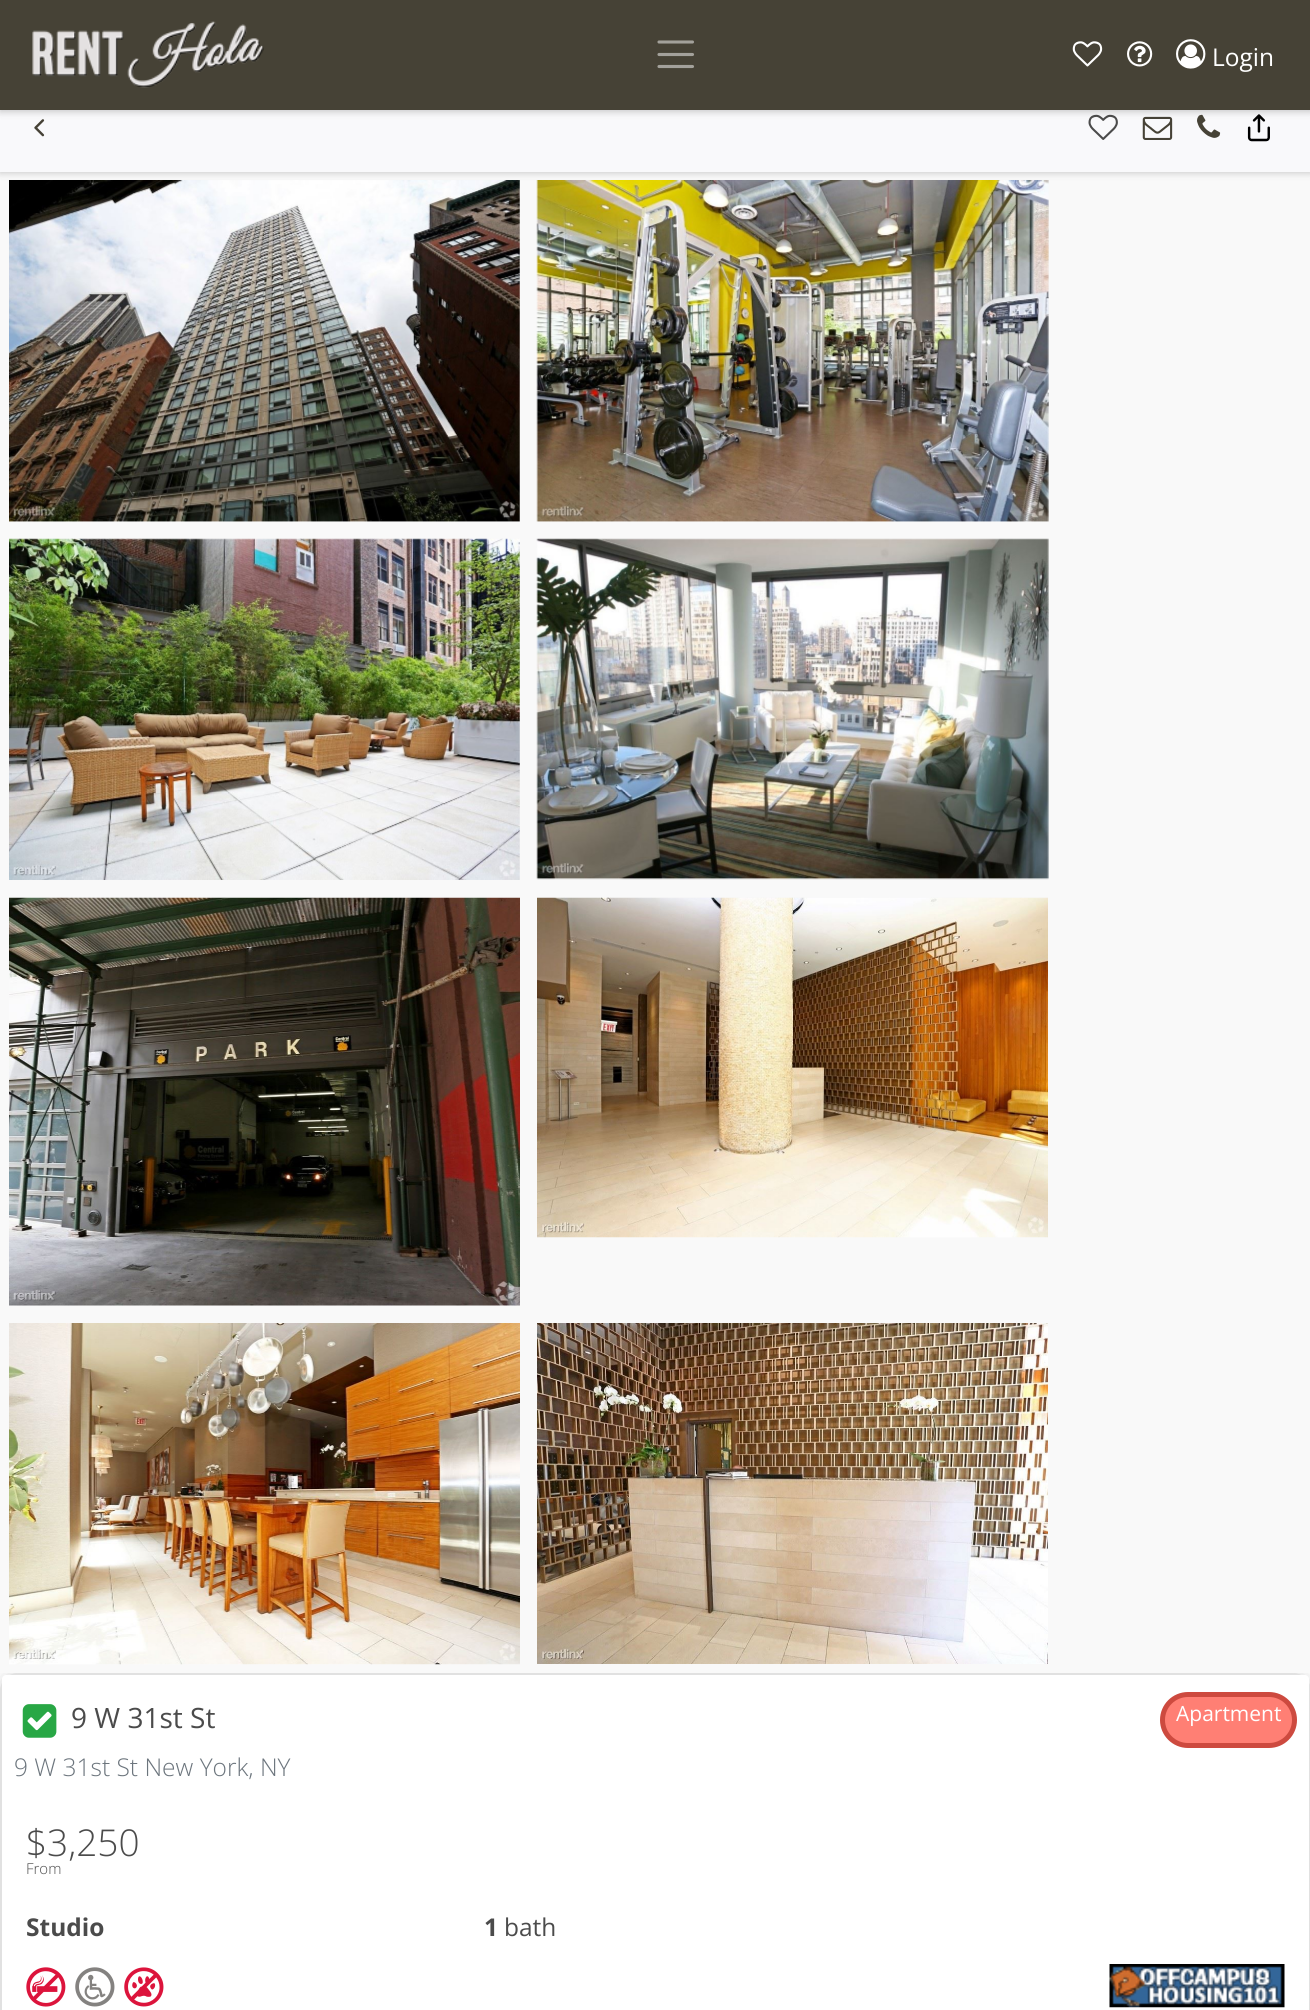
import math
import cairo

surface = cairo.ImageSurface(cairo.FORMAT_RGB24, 1310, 2010)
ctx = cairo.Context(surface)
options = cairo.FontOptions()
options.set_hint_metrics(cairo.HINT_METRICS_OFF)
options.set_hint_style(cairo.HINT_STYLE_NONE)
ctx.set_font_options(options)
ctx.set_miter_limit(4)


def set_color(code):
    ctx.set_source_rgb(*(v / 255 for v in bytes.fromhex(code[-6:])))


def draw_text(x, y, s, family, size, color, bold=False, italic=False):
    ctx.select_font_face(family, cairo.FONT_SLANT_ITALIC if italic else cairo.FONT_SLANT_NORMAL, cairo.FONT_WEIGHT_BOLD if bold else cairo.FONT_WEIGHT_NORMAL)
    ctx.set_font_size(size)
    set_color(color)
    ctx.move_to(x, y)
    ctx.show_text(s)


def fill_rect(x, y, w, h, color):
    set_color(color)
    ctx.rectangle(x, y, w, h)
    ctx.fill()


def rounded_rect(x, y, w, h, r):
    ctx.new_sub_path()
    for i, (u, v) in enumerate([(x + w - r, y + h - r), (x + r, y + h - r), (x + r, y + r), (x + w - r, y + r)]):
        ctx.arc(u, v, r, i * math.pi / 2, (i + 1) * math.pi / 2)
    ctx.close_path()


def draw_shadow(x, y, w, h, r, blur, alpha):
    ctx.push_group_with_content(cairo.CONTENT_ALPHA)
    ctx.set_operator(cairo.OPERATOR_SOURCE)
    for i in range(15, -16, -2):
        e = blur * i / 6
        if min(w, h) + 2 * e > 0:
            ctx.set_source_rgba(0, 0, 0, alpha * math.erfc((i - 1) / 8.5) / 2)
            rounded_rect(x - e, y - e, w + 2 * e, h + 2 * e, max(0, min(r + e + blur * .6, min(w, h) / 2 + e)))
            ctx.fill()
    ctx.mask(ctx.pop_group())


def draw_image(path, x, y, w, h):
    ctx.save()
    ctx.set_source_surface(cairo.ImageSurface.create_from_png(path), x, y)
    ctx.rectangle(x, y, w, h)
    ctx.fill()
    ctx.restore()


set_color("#ffffff")
ctx.paint()
fill_rect(0, 172, 1310, 1501, "#f9f9f9")
draw_image("assets/img10.png", 9, 180, 511, 342)
draw_image("assets/img11.png", 536, 180, 513, 342)
set_color("#000000")
draw_shadow(0, 88, 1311, 85, 0, 3.5, 0.2)
fill_rect(0, 110, 1310, 62, "#f9f9fb")
draw_image("assets/img5.png", 34, 119, 11, 18)
draw_image("assets/img6.png", 1088, 114, 30, 26)
draw_image("assets/img7.png", 1142, 116, 31, 24)
draw_image("assets/img8.png", 1197, 114, 24, 24)
draw_image("assets/img9.png", 1247, 114, 23, 28)
set_color("#000000")
draw_shadow(0, 2, 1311, 110, 0, 3.5, 0.2)
fill_rect(0, 0, 1310, 110, "#464236")
draw_image("assets/img1.png", 32, 21, 232, 67)
ctx.new_path()
ctx.move_to(659, 42)
ctx.line_to(692.5, 42)
ctx.move_to(659, 54.5)
ctx.line_to(692.5, 54.5)
ctx.move_to(659, 66.5)
ctx.line_to(692.5, 66.5)
set_color("#a3a19b")
ctx.set_line_width(3.1)
ctx.set_line_cap(cairo.LINE_CAP_ROUND)
ctx.stroke()
draw_image("assets/img2.png", 1072, 41, 31, 26)
draw_image("assets/img3.png", 1127, 41, 26, 26)
draw_image("assets/img4.png", 1176, 39, 30, 30)
draw_text(1212, 66, "Login", "Open Sans", 24.5, "#ffffff")
draw_image("assets/img12.png", 9, 538, 511, 342)
draw_image("assets/img13.png", 536, 538, 513, 342)
draw_image("assets/img14.png", 9, 897, 511, 409)
draw_image("assets/img15.png", 537, 897, 511, 341)
draw_image("assets/img16.png", 9, 1323, 511, 342)
draw_image("assets/img17.png", 537, 1323, 511, 341)
ctx.save()
ctx.rectangle(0, 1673, 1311, 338)
ctx.clip()
set_color("#000000")
draw_shadow(0, 1673, 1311, 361, 18, 9, 0.2)
ctx.restore()
ctx.new_path()
ctx.move_to(18, 1673)
ctx.line_to(1293, 1673)
ctx.curve_to(1303, 1673, 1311, 1681, 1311, 1691)
ctx.line_to(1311, 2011)
ctx.line_to(0, 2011)
ctx.line_to(0, 1691)
ctx.curve_to(0, 1681, 8, 1673, 18, 1673)
ctx.close_path()
ctx.fill()
rounded_rect(1, 1674, 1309, 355, 17)
ctx.set_source_rgba(0, 0, 0, 0.12)
ctx.set_line_width(2)
ctx.set_line_cap(cairo.LINE_CAP_BUTT)
ctx.stroke()
set_color("#ffffff")
ctx.new_path()
ctx.move_to(6, 1675)
ctx.line_to(1305, 1675)
ctx.curve_to(1307, 1675, 1309, 1677, 1309, 1679)
ctx.line_to(1309, 1797)
ctx.line_to(2, 1797)
ctx.line_to(2, 1679)
ctx.curve_to(2, 1677, 4, 1675, 6, 1675)
ctx.close_path()
ctx.fill()
draw_image("assets/img18.png", 22, 1704, 35, 34)
draw_text(71, 1728, "9 W 31st St", "Open Sans", 28, "#4b4b4b")
set_color("#ff7f74")
rounded_rect(1162.5, 1694.5, 132, 51, 25.5)
ctx.fill_preserve()
set_color("#cd4a3f")
ctx.set_line_width(5)
ctx.stroke()
draw_text(1176, 1721, "Apartment", "Open Sans", 21, "#ffffff")
draw_text(14, 1776, "9 W 31st St New York, NY", "Open Sans Light", 24.5, "#6c757d")
draw_text(26, 1856, "$3,250", "Open Sans Light", 37, "#4b4b4b")
draw_text(26, 1874, "From", "Open Sans Light", 15, "#4b4b4b")
draw_text(26, 1936, "Studio", "Open Sans", 24.5, "#4b4b4b", bold=True)
draw_text(484, 1936, "1", "Open Sans", 24.5, "#4b4b4b", bold=True)
draw_text(504, 1936, "bath", "Open Sans", 24.5, "#4b4b4b")
draw_image("assets/img19.png", 26, 1967, 40, 40)
draw_image("assets/img20.png", 75, 1967, 40, 40)
draw_image("assets/img21.png", 124, 1967, 40, 40)
draw_image("assets/img22.png", 1109, 1964, 176, 44)
surface.write_to_png("output.png")
